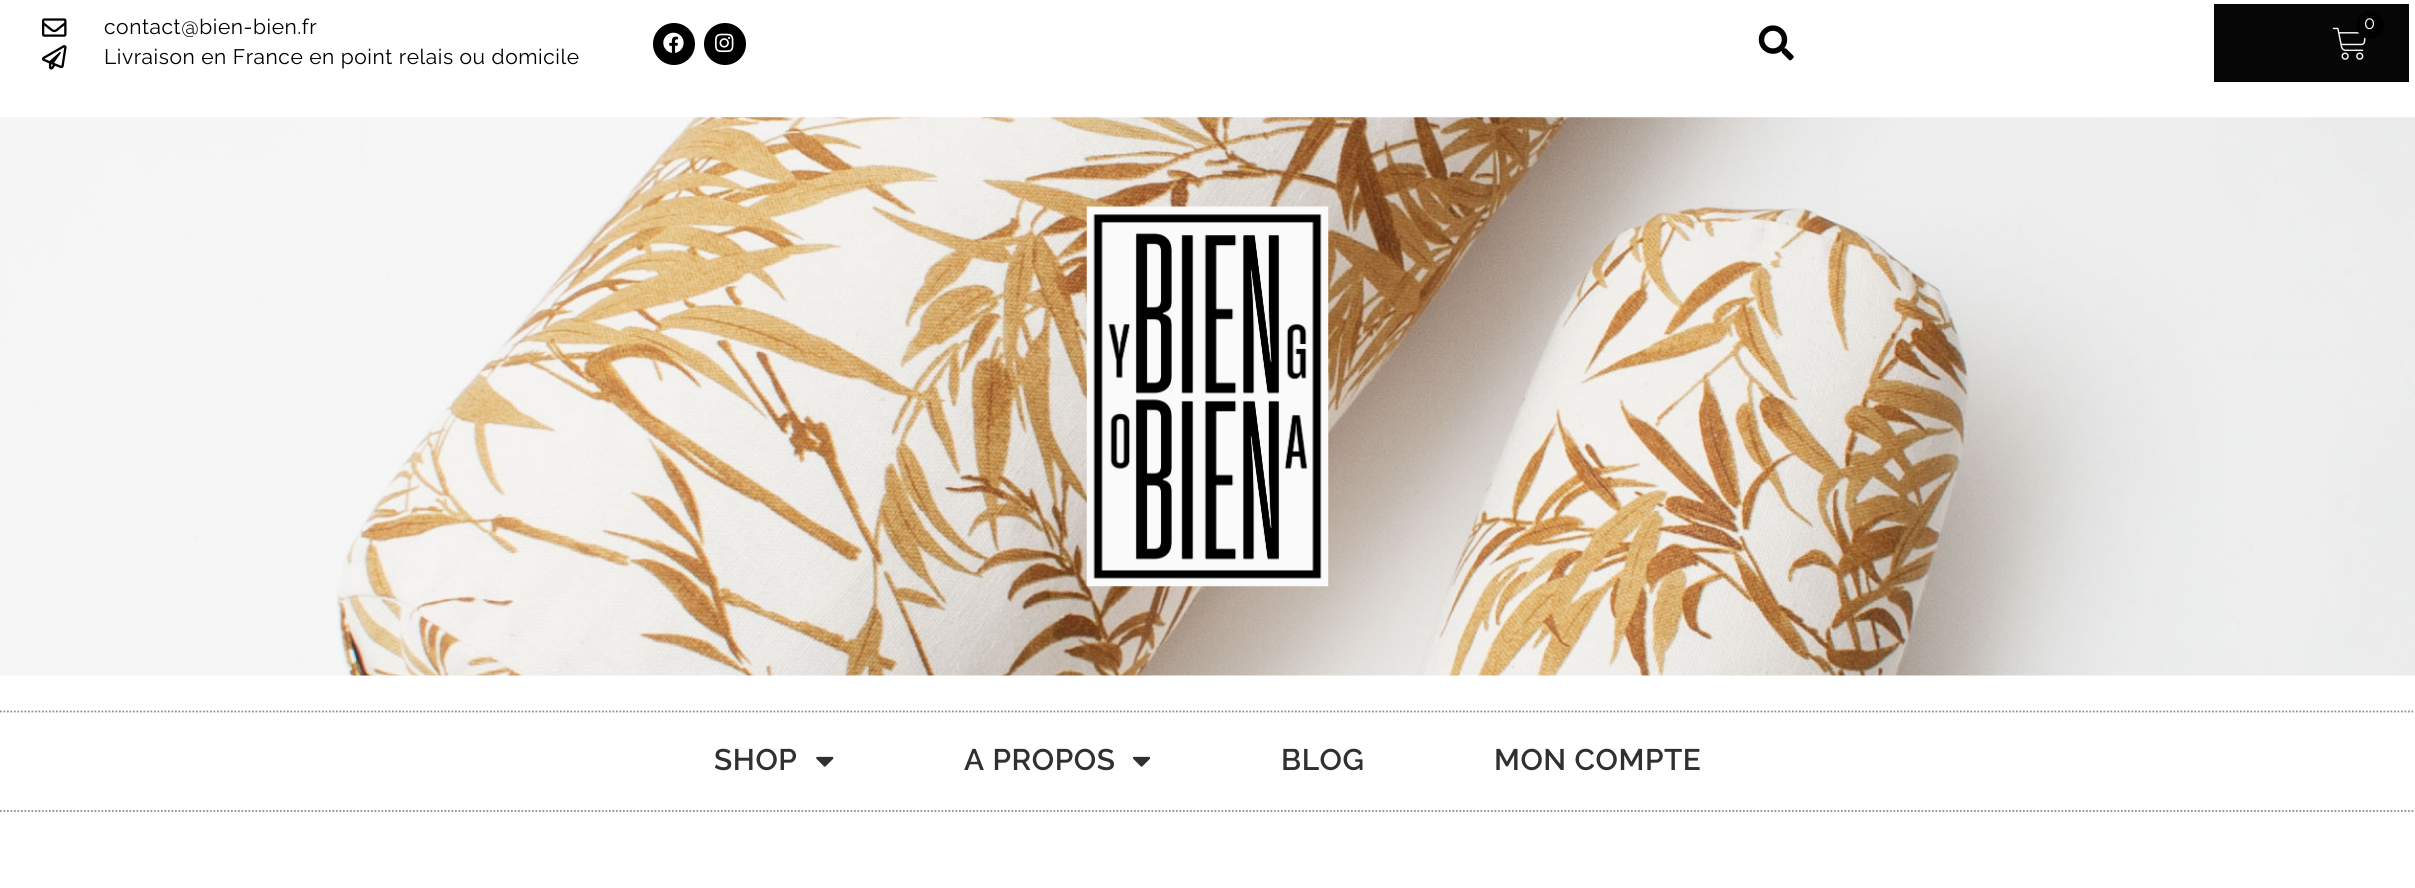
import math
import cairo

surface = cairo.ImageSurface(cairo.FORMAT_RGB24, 2415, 888)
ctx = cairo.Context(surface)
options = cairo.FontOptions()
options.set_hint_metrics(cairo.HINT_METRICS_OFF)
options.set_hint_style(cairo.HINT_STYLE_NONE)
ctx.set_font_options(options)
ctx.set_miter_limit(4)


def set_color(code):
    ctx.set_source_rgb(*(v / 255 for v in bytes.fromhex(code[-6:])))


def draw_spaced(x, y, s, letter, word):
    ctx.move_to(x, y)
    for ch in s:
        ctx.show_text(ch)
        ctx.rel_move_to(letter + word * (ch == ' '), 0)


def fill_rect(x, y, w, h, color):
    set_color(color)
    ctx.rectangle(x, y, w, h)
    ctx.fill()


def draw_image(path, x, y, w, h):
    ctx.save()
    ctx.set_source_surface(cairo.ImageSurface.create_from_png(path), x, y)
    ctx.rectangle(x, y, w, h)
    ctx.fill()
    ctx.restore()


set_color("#ffffff")
ctx.paint()
draw_image("assets/img1.png", 42, 18, 25, 19)
ctx.select_font_face("Raleway")
ctx.set_font_size(21)
set_color("#000000")
draw_spaced(104, 34, "contact@bien-bien.fr", 0.55, 0)
draw_image("assets/img2.png", 42, 45, 25, 25)
draw_spaced(104, 64, "Livraison en France en point relais ou domicile", 0.55, 0)
ctx.new_path()
ctx.arc(674, 44, 21, 0, 2 * math.pi)
ctx.fill()
draw_image("assets/img3.png", 663, 32, 21, 21)
ctx.arc(725, 44, 21, 0, 2 * math.pi)
ctx.fill()
draw_image("assets/img4.png", 715, 33, 19, 20)
draw_image("assets/img5.png", 1758, 25, 36, 36)
fill_rect(2214, 4, 195, 78, "#060606")
draw_image("assets/img6.png", 2332, 27, 34, 33)
set_color("#000000")
ctx.arc(2370, 25, 14, 0, 2 * math.pi)
ctx.fill()
ctx.set_font_size(18)
set_color("#ffffff")
draw_spaced(2364, 29, "0", 0.55, 0)
draw_image("assets/img7.png", 0, 117, 2415, 559)
draw_image("assets/img8.png", 1086, 206, 243, 381)
ctx.new_path()
ctx.move_to(0, 711.5)
ctx.line_to(2415, 711.5)
set_color("#8e8e8e")
ctx.set_line_width(1.8)
ctx.set_dash([1.75, 1.75])
ctx.stroke()
ctx.new_path()
ctx.move_to(0, 811)
ctx.line_to(2415, 811)
ctx.stroke()
ctx.select_font_face("Raleway SemiBold")
ctx.set_font_size(29.75)
set_color("#303030")
draw_spaced(714, 770, "SHOP", 0.55, 0)
draw_image("assets/img9.png", 816, 756, 18, 11)
draw_spaced(964, 770, "A PROPOS", 0.55, 0)
draw_image("assets/img10.png", 1132, 756, 19, 11)
draw_spaced(1281, 770, "BLOG", 0.55, 0)
draw_spaced(1494, 770, "MON COMPTE", 0.55, 0)
surface.write_to_png("output.png")
